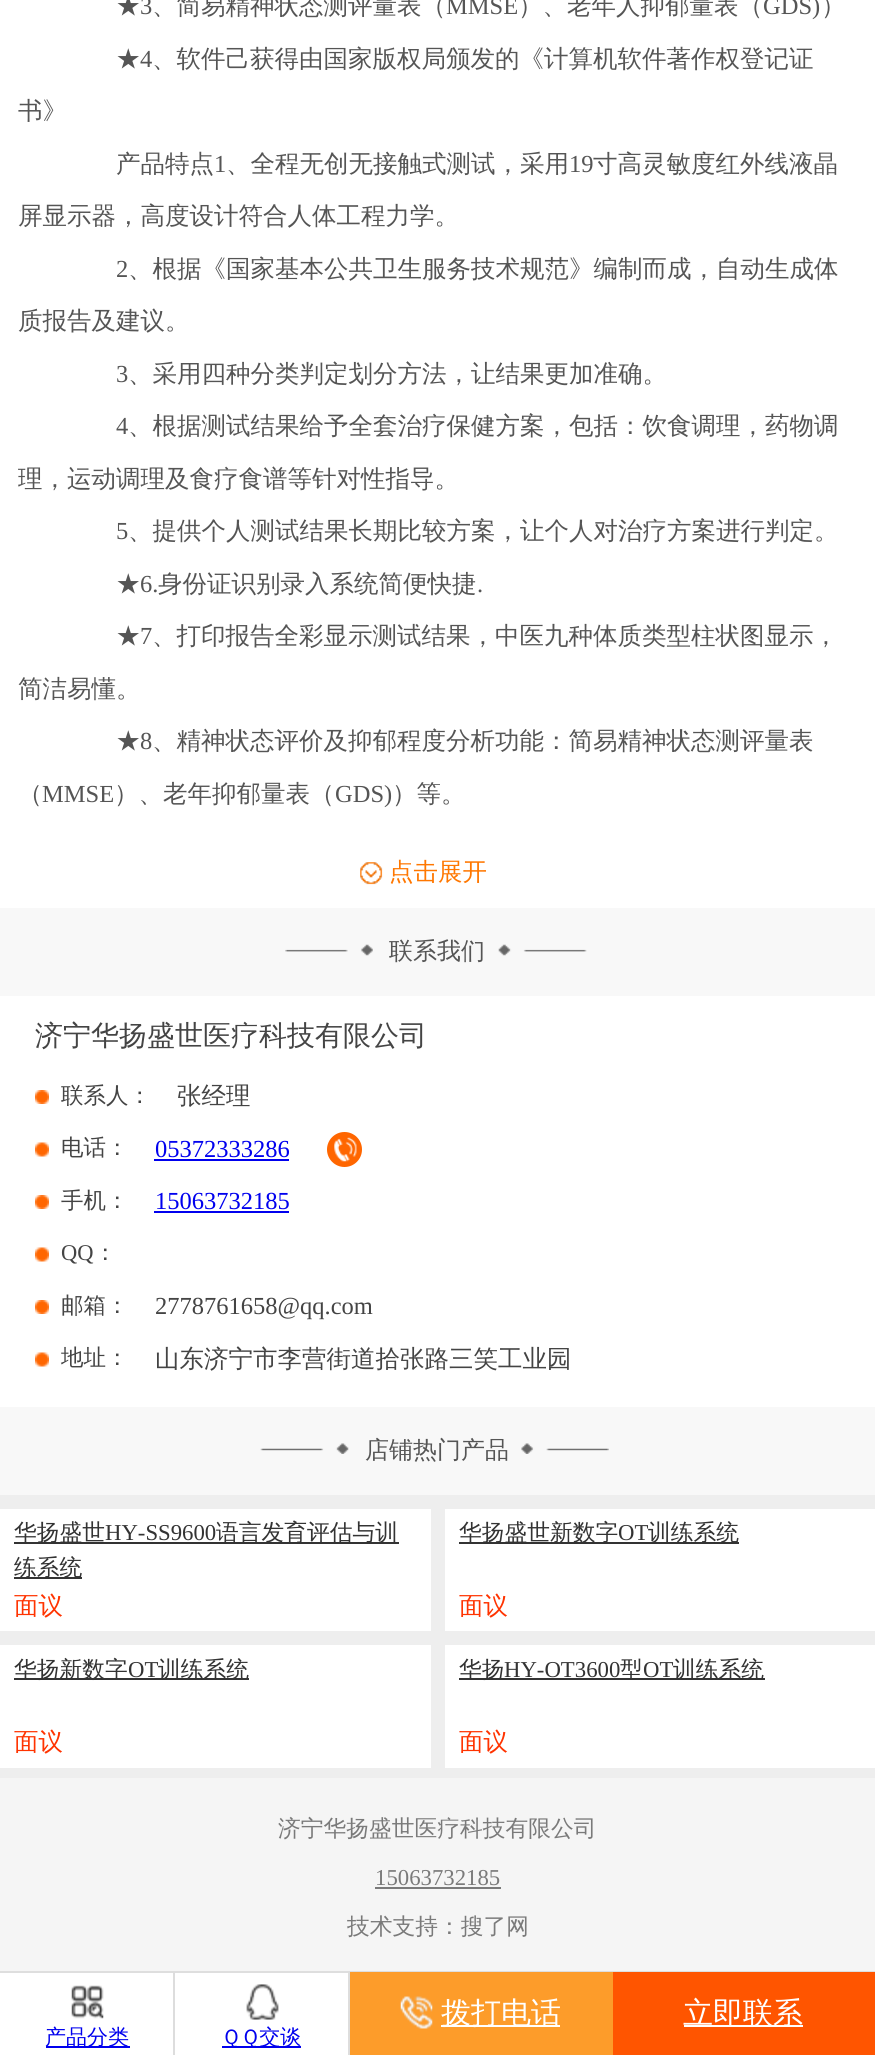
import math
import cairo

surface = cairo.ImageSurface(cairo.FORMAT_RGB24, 875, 2055)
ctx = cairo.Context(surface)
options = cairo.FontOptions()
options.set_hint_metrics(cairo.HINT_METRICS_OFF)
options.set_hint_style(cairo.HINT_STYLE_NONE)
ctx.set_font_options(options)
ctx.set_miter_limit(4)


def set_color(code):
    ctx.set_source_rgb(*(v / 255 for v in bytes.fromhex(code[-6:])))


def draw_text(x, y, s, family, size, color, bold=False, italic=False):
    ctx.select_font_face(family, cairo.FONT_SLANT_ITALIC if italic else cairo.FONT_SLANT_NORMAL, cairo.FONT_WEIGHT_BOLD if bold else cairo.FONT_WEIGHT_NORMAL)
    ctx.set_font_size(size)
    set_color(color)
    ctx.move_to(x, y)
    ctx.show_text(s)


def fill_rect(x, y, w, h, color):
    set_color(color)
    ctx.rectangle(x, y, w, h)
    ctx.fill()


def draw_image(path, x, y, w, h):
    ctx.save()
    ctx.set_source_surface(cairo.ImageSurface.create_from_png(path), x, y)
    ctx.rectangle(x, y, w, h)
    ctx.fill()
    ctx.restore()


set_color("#ffffff")
ctx.paint()
draw_text(116, 14, "★", "WenQuanYi Zen Hei Medium", 24.5, "#555555")
draw_text(140, 14, "3", "Liberation Serif", 24.5, "#555555")
draw_text(152, 14, "、简易精神状态测评量表（", "WenQuanYi Zen Hei Medium", 24.5, "#555555")
draw_text(446, 14, "MMSE", "Liberation Serif", 24.5, "#555555")
draw_text(518, 14, "）、老年人抑郁量表（", "WenQuanYi Zen Hei Medium", 24.5, "#555555")
draw_text(763, 14, "GDS)", "Liberation Serif", 24.5, "#555555")
draw_text(821, 14, "）", "WenQuanYi Zen Hei Medium", 24.5, "#555555")
draw_text(116, 67, "★", "WenQuanYi Zen Hei Medium", 24.5, "#555555")
draw_text(140, 67, "4", "Liberation Serif", 24.5, "#555555")
draw_text(152, 67, "、软件己获得由国家版权局颁发的《计算机软件著作权登记证", "WenQuanYi Zen Hei Medium", 24.5, "#555555")
draw_text(18, 119, "书》", "WenQuanYi Zen Hei Medium", 24.5, "#555555")
draw_text(116, 172, "产品特点", "WenQuanYi Zen Hei Medium", 24.5, "#555555")
draw_text(214, 172, "1", "Liberation Serif", 24.5, "#555555")
draw_text(226, 172, "、全程无创无接触式测试，采用", "WenQuanYi Zen Hei Medium", 24.5, "#555555")
draw_text(569, 172, "19", "Liberation Serif", 24.5, "#555555")
draw_text(593, 172, "寸高灵敏度红外线液晶", "WenQuanYi Zen Hei Medium", 24.5, "#555555")
draw_text(18, 224, "屏显示器，高度设计符合人体工程力学。", "WenQuanYi Zen Hei Medium", 24.5, "#555555")
draw_text(116, 277, "2", "Liberation Serif", 24.5, "#555555")
draw_text(128, 277, "、根据《国家基本公共卫生服务技术规范》编制而成，自动生成体", "WenQuanYi Zen Hei Medium", 24.5, "#555555")
draw_text(18, 329, "质报告及建议。", "WenQuanYi Zen Hei Medium", 24.5, "#555555")
draw_text(116, 382, "3", "Liberation Serif", 24.5, "#555555")
draw_text(128, 382, "、采用四种分类判定划分方法，让结果更加准确。", "WenQuanYi Zen Hei Medium", 24.5, "#555555")
draw_text(116, 434, "4", "Liberation Serif", 24.5, "#555555")
draw_text(128, 434, "、根据测试结果给予全套治疗保健方案，包括：饮食调理，药物调", "WenQuanYi Zen Hei Medium", 24.5, "#555555")
draw_text(18, 487, "理，运动调理及食疗食谱等针对性指导。", "WenQuanYi Zen Hei Medium", 24.5, "#555555")
draw_text(116, 539, "5", "Liberation Serif", 24.5, "#555555")
draw_text(128, 539, "、提供个人测试结果长期比较方案，让个人对治疗方案进行判定。", "WenQuanYi Zen Hei Medium", 24.5, "#555555")
draw_text(116, 592, "★", "WenQuanYi Zen Hei Medium", 24.5, "#555555")
draw_text(140, 592, "6.", "Liberation Serif", 24.5, "#555555")
draw_text(158, 592, "身份证识别录入系统简便快捷", "WenQuanYi Zen Hei Medium", 24.5, "#555555")
draw_text(477, 592, ".", "Liberation Serif", 24.5, "#555555")
draw_text(116, 644, "★", "WenQuanYi Zen Hei Medium", 24.5, "#555555")
draw_text(140, 644, "7", "Liberation Serif", 24.5, "#555555")
draw_text(152, 644, "、打印报告全彩显示测试结果，中医九种体质类型柱状图显示，", "WenQuanYi Zen Hei Medium", 24.5, "#555555")
draw_text(18, 697, "简洁易懂。", "WenQuanYi Zen Hei Medium", 24.5, "#555555")
draw_text(116, 749, "★", "WenQuanYi Zen Hei Medium", 24.5, "#555555")
draw_text(140, 749, "8", "Liberation Serif", 24.5, "#555555")
draw_text(152, 749, "、精神状态评价及抑郁程度分析功能：简易精神状态测评量表", "WenQuanYi Zen Hei Medium", 24.5, "#555555")
draw_text(18, 802, "（", "WenQuanYi Zen Hei Medium", 24.5, "#555555")
draw_text(42, 802, "MMSE", "Liberation Serif", 24.5, "#555555")
draw_text(114, 802, "）、老年抑郁量表（", "WenQuanYi Zen Hei Medium", 24.5, "#555555")
draw_text(335, 802, "GDS)", "Liberation Serif", 24.5, "#555555")
draw_text(392, 802, "）等。", "WenQuanYi Zen Hei Medium", 24.5, "#555555")
draw_image("assets/img1.png", 360, 862, 23, 23)
draw_text(389, 880, "点击展开", "WenQuanYi Zen Hei Medium", 24.5, "#ff7700")
fill_rect(0, 908, 875, 88, "#f8f8f8")
draw_image("assets/img2.png", 285, 944, 88, 12)
draw_text(389, 959, "联系我们", "WenQuanYi Zen Hei Medium", 24, "#555555")
draw_image("assets/img3.png", 498, 944, 89, 12)
draw_text(35, 1045, "济宁华扬盛世医疗科技有限公司", "WenQuanYi Zen Hei Medium", 28, "#444444")
draw_image("assets/img4.png", 35, 1090, 14, 14)
draw_text(61, 1103, "联系人：", "WenQuanYi Zen Hei Medium", 22.5, "#444444")
draw_text(177, 1104, "张经理", "WenQuanYi Zen Hei Medium", 24.5, "#444444")
draw_image("assets/img5.png", 35, 1142, 14, 15)
draw_text(61, 1155, "电话：", "WenQuanYi Zen Hei Medium", 22.5, "#444444")
draw_text(155, 1157, "05372333286", "Liberation Serif", 24.5, "#0000ee")
fill_rect(154, 1159, 135, 2, "#0000ee")
set_color("#ff6600")
ctx.new_path()
ctx.arc(344.5, 1149.5, 17.5, 0, 2 * math.pi)
ctx.fill()
draw_image("assets/img6.png", 334, 1137, 23, 25)
draw_image("assets/img4.png", 35, 1195, 14, 14)
draw_text(61, 1208, "手机：", "WenQuanYi Zen Hei Medium", 22.5, "#444444")
draw_text(155, 1209, "15063732185", "Liberation Serif", 24.5, "#0000ee")
fill_rect(154, 1211, 135, 2, "#0000ee")
draw_image("assets/img5.png", 35, 1247, 14, 15)
draw_text(61, 1260, "QQ", "Liberation Serif", 22.5, "#444444")
draw_text(94, 1260, "：", "WenQuanYi Zen Hei Medium", 22.5, "#444444")
draw_image("assets/img4.png", 35, 1300, 14, 14)
draw_text(61, 1313, "邮箱：", "WenQuanYi Zen Hei Medium", 22.5, "#444444")
draw_text(155, 1314, "2778761658@qq.com", "Liberation Serif", 24.5, "#444444")
draw_image("assets/img5.png", 35, 1352, 14, 15)
draw_text(61, 1365, "地址：", "WenQuanYi Zen Hei Medium", 22.5, "#444444")
draw_text(155, 1367, "山东济宁市李营街道拾张路三笑工业园", "WenQuanYi Zen Hei Medium", 24.5, "#444444")
fill_rect(0, 1407, 875, 88, "#f8f8f8")
draw_image("assets/img7.png", 260, 1443, 89, 11)
draw_text(365, 1458, "店铺热门产品", "WenQuanYi Zen Hei Medium", 24, "#555555")
draw_image("assets/img8.png", 521, 1443, 88, 11)
fill_rect(0, 1495, 875, 283, "#eeeeee")
fill_rect(0, 1509, 431, 122, "#ffffff")
fill_rect(14, 1542, 385, 2, "#333333")
draw_text(14, 1540, "华扬盛世", "WenQuanYi Zen Hei Medium", 22.75, "#333333")
draw_text(105, 1540, "HY-SS9600", "Liberation Serif", 22.75, "#333333")
draw_text(216, 1540, "语言发育评估与训", "WenQuanYi Zen Hei Medium", 22.75, "#333333")
fill_rect(14, 1577, 68, 2, "#333333")
draw_text(14, 1575, "练系统", "WenQuanYi Zen Hei Medium", 22.75, "#333333")
draw_text(14, 1614, "面议", "WenQuanYi Zen Hei Medium", 24.5, "#ff3300")
fill_rect(445, 1509, 430, 122, "#ffffff")
fill_rect(459, 1542, 280, 2, "#333333")
draw_text(459, 1540, "华扬盛世新数字", "WenQuanYi Zen Hei Medium", 22.75, "#333333")
draw_text(618, 1540, "OT", "Liberation Serif", 22.75, "#333333")
draw_text(648, 1540, "训练系统", "WenQuanYi Zen Hei Medium", 22.75, "#333333")
draw_text(459, 1614, "面议", "WenQuanYi Zen Hei Medium", 24.5, "#ff3300")
fill_rect(0, 1645, 431, 123, "#ffffff")
fill_rect(14, 1678, 235, 2, "#333333")
draw_text(14, 1677, "华扬新数字", "WenQuanYi Zen Hei Medium", 22.75, "#333333")
draw_text(128, 1677, "OT", "Liberation Serif", 22.75, "#333333")
draw_text(158, 1677, "训练系统", "WenQuanYi Zen Hei Medium", 22.75, "#333333")
draw_text(14, 1750, "面议", "WenQuanYi Zen Hei Medium", 24.5, "#ff3300")
fill_rect(445, 1645, 430, 123, "#ffffff")
fill_rect(459, 1678, 306, 2, "#333333")
draw_text(459, 1677, "华扬", "WenQuanYi Zen Hei Medium", 22.75, "#333333")
draw_text(504, 1677, "HY-OT3600", "Liberation Serif", 22.75, "#333333")
draw_text(620, 1677, "型", "WenQuanYi Zen Hei Medium", 22.75, "#333333")
draw_text(643, 1677, "OT", "Liberation Serif", 22.75, "#333333")
draw_text(673, 1677, "训练系统", "WenQuanYi Zen Hei Medium", 22.75, "#333333")
draw_text(459, 1750, "面议", "WenQuanYi Zen Hei Medium", 24.5, "#ff3300")
fill_rect(0, 1778, 875, 193, "#f5f5f5")
draw_text(278, 1836, "济宁华扬盛世医疗科技有限公司", "WenQuanYi Zen Hei Medium", 22.75, "#7a7a7a")
draw_text(375, 1885, "15063732185", "Liberation Serif", 22.75, "#7a7a7a")
fill_rect(375, 1887, 126, 2, "#7a7a7a")
draw_text(347, 1934, "技术支持：搜了网", "WenQuanYi Zen Hei Medium", 22.75, "#7a7a7a")
fill_rect(0, 1971, 875, 2, "#dedede")
fill_rect(350, 1972, 263, 83, "#fd9c2a")
draw_image("assets/img9.png", 400, 1996, 33, 33)
fill_rect(441, 2025, 119, 2, "#ffffff")
draw_text(441, 2023, "拨打电话", "WenQuanYi Zen Hei Medium", 30, "#ffffff")
fill_rect(613, 1972, 262, 83, "#ff5500")
fill_rect(684, 2025, 119, 2, "#ffffff")
draw_text(683, 2023, "立即联系", "WenQuanYi Zen Hei Medium", 30, "#ffffff")
fill_rect(173, 1972, 2, 83, "#dddddd")
draw_image("assets/img10.png", 71, 1985, 33, 34)
fill_rect(46, 2046, 84, 2, "#0000ee")
draw_text(45, 2044, "产品分类", "WenQuanYi Zen Hei Medium", 21, "#0000ee")
fill_rect(348, 1972, 2, 83, "#dddddd")
draw_image("assets/img11.png", 246, 1984, 33, 36)
fill_rect(222, 2046, 79, 2, "#0000ee")
draw_text(221, 2044, "ＱＱ交谈", "WenQuanYi Zen Hei Medium", 21, "#0000ee")
surface.write_to_png("output.png")
